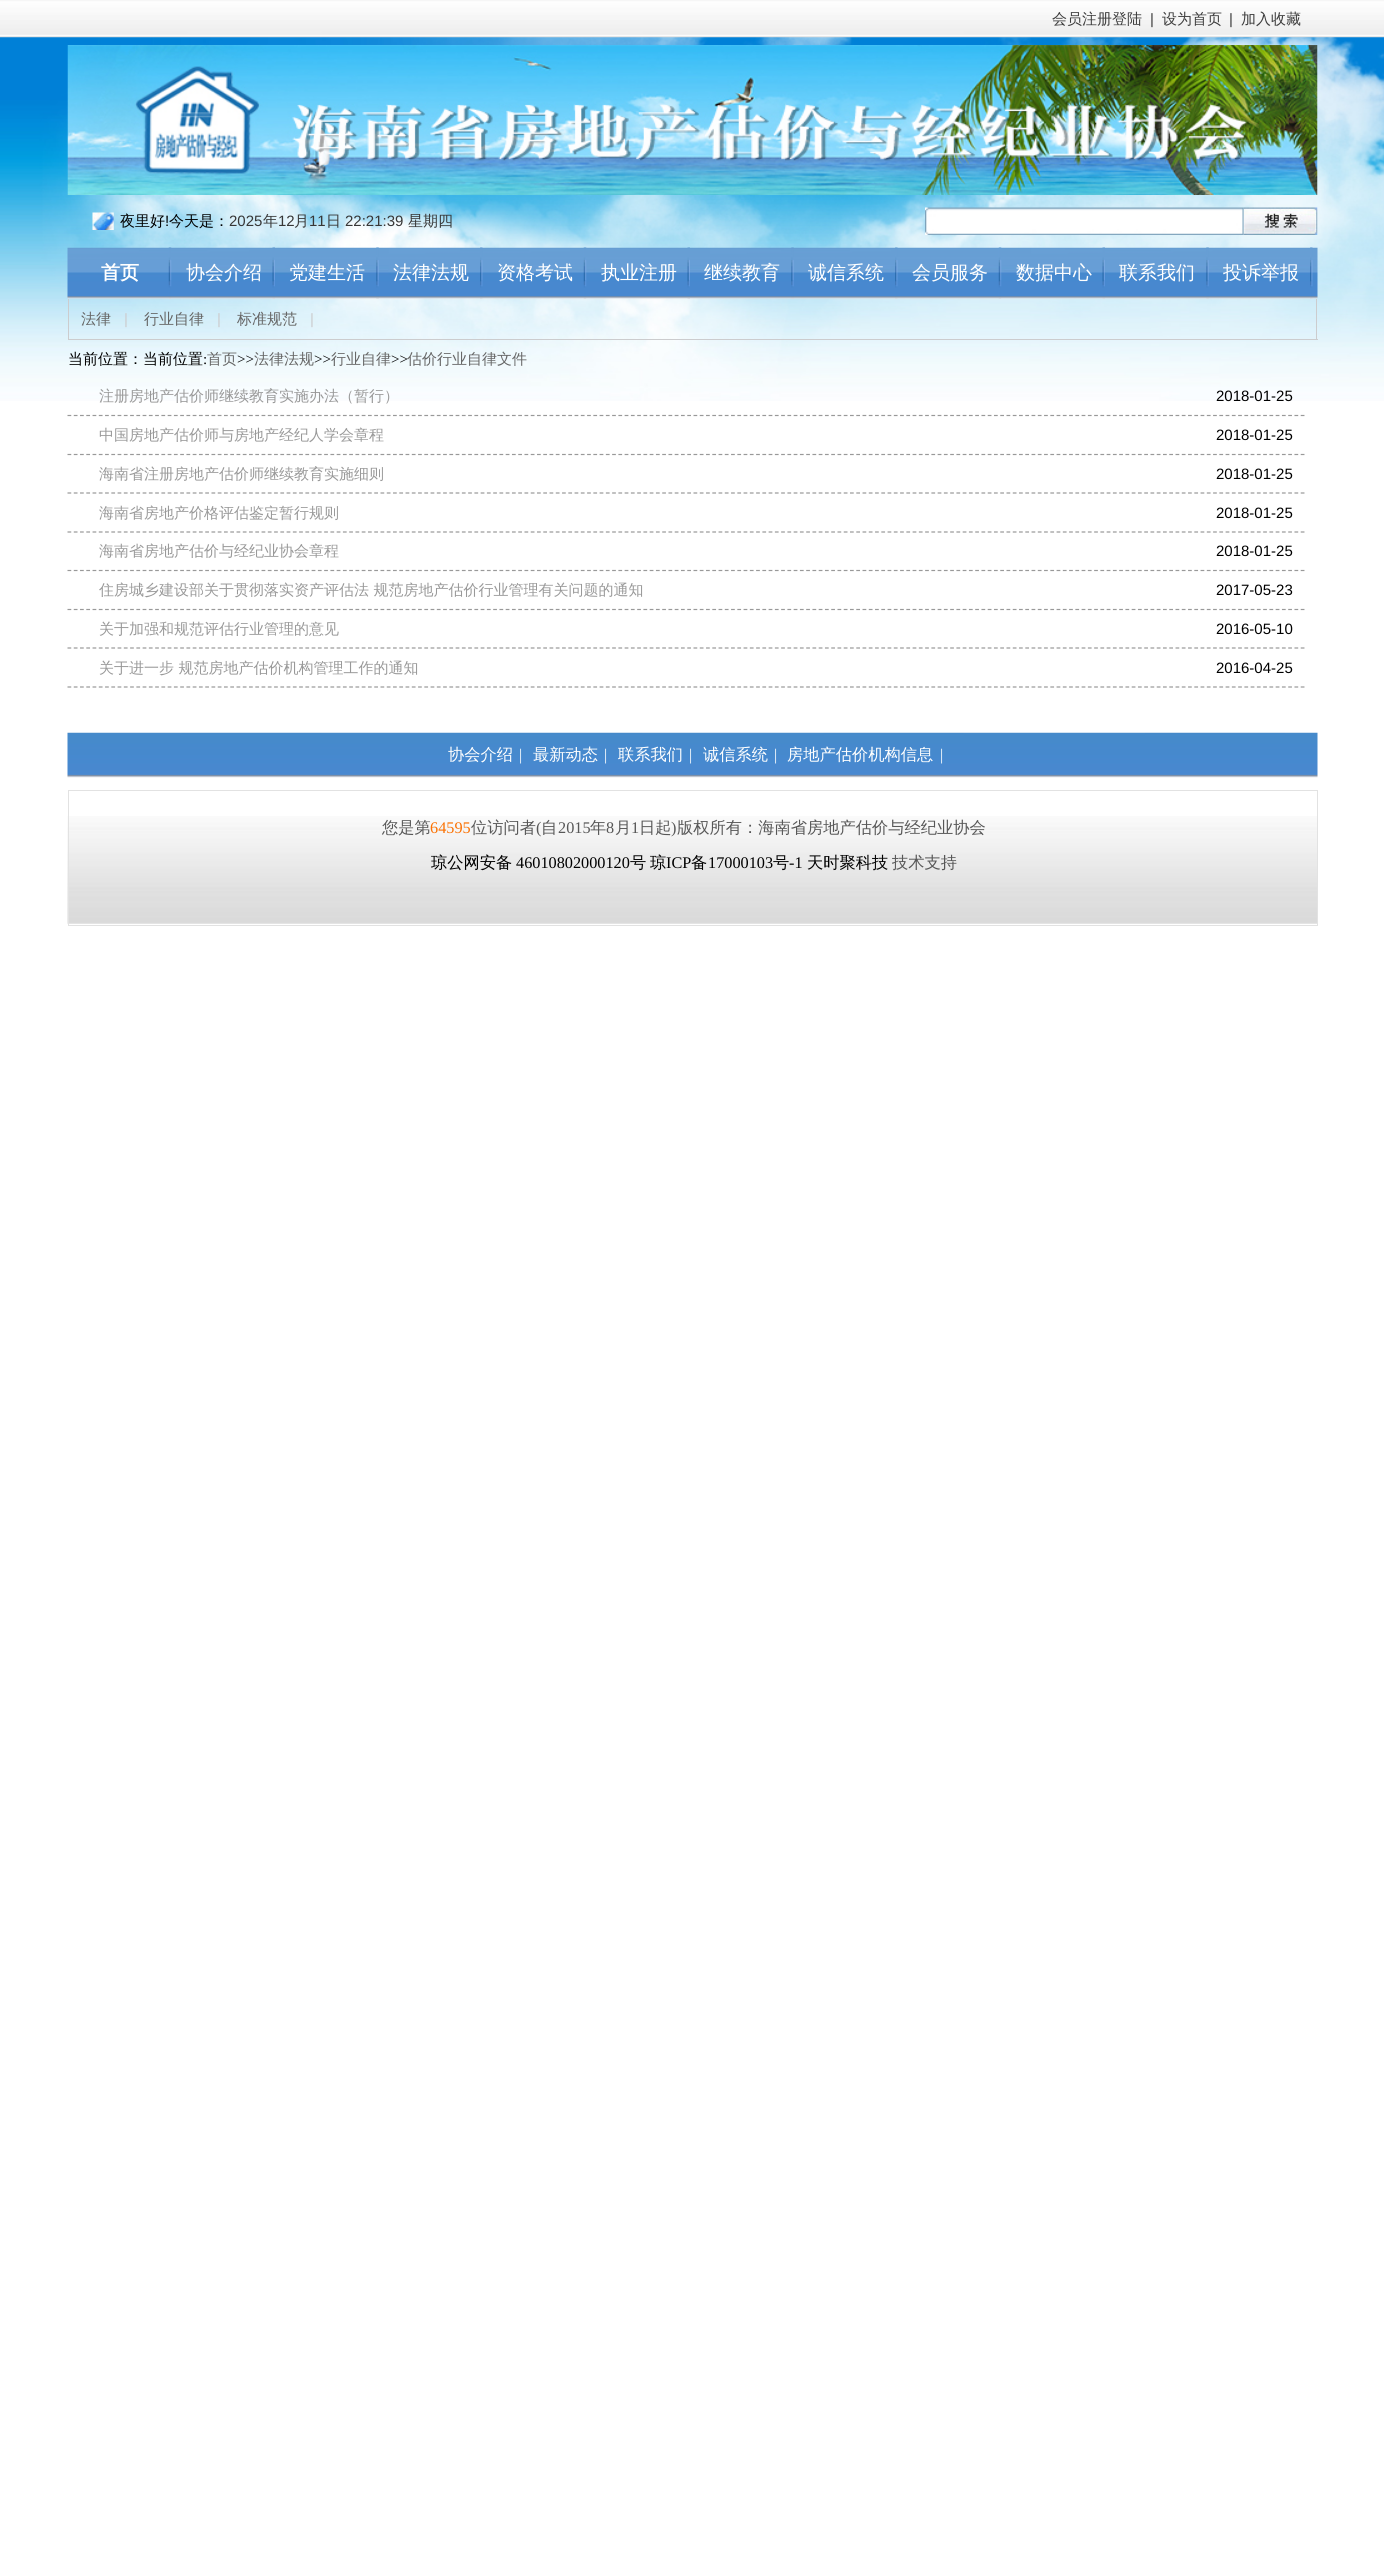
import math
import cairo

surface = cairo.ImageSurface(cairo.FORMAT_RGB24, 1384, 2563)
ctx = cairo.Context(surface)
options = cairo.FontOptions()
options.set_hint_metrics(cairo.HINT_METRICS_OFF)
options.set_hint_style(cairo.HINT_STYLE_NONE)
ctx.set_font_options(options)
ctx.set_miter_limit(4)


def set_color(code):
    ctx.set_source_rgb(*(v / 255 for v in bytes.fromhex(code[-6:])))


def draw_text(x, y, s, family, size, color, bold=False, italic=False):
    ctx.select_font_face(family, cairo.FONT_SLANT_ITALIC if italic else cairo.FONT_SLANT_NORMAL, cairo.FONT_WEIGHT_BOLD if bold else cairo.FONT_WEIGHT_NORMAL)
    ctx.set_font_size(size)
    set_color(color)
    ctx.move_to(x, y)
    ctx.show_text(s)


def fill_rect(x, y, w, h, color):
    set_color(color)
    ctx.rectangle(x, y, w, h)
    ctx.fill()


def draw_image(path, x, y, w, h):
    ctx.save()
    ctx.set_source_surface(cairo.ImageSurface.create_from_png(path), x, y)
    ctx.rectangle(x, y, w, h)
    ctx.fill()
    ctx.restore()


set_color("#ffffff")
ctx.paint()
draw_image("assets/img1.png", 0, 37, 1384, 364)
draw_image("assets/img2.png", 0, 0, 1384, 38)
draw_text(1052, 24, "会员注册登陆", "WenQuanYi Zen Hei Medium", 15, "#3d3d3d")
draw_text(1150, 24, "|", "Liberation Sans", 15, "#3d3d3d")
draw_text(1162, 24, "设为首页", "WenQuanYi Zen Hei Medium", 15, "#3d3d3d")
draw_text(1229, 24, "|", "Liberation Sans", 15, "#3d3d3d")
draw_text(1241, 24, "加入收藏", "WenQuanYi Zen Hei Medium", 15, "#3d3d3d")
draw_image("assets/img3.png", 67, 45, 1251, 150)
draw_image("assets/img4.png", 92, 212, 22, 18)
draw_text(120, 226, "夜里好", "WenQuanYi Zen Hei Medium", 15, "#000000")
draw_text(165, 226, "!", "Liberation Sans", 15, "#000000")
draw_text(169, 226, "今天是：", "WenQuanYi Zen Hei Medium", 15, "#000000")
draw_text(229, 226, "2025", "Liberation Sans", 15, "#373737")
draw_text(263, 226, "年", "WenQuanYi Zen Hei Medium", 15, "#373737")
draw_text(278, 226, "12", "Liberation Sans", 15, "#373737")
draw_text(294, 226, "月", "WenQuanYi Zen Hei Medium", 15, "#373737")
draw_text(309, 226, "11", "Liberation Sans", 15, "#373737")
draw_text(326, 226, "日", "WenQuanYi Zen Hei Medium", 15, "#373737")
draw_text(345, 226, "22:21:39", "Liberation Sans", 15, "#373737")
draw_text(408, 226, "星期四", "WenQuanYi Zen Hei Medium", 15, "#373737")
draw_image("assets/img5.png", 925, 207, 319, 28)
draw_image("assets/img6.png", 1243, 207, 75, 28)
draw_image("assets/img7.png", 67, 247, 1251, 52)
draw_image("assets/img8.png", 168, 247, 4, 52)
draw_text(101, 279, "首页", "WenQuanYi Zen Hei", 19, "#ffffff", bold=True)
draw_image("assets/img9.png", 272, 247, 3, 52)
draw_text(186, 279, "协会介绍", "WenQuanYi Zen Hei Medium", 19, "#ffffff")
draw_image("assets/img10.png", 376, 247, 3, 52)
draw_text(289, 279, "党建生活", "WenQuanYi Zen Hei Medium", 19, "#ffffff")
draw_image("assets/img11.png", 480, 247, 3, 52)
draw_text(393, 279, "法律法规", "WenQuanYi Zen Hei Medium", 19, "#ffffff")
draw_image("assets/img12.png", 583, 247, 4, 52)
draw_text(497, 279, "资格考试", "WenQuanYi Zen Hei Medium", 19, "#ffffff")
draw_image("assets/img13.png", 687, 247, 3, 52)
draw_text(601, 279, "执业注册", "WenQuanYi Zen Hei Medium", 19, "#ffffff")
draw_image("assets/img14.png", 791, 247, 3, 52)
draw_text(704, 279, "继续教育", "WenQuanYi Zen Hei Medium", 19, "#ffffff")
draw_image("assets/img15.png", 895, 247, 3, 52)
draw_text(808, 279, "诚信系统", "WenQuanYi Zen Hei Medium", 19, "#ffffff")
draw_image("assets/img16.png", 998, 247, 4, 52)
draw_text(912, 279, "会员服务", "WenQuanYi Zen Hei Medium", 19, "#ffffff")
draw_image("assets/img17.png", 1102, 247, 3, 52)
draw_text(1016, 279, "数据中心", "WenQuanYi Zen Hei Medium", 19, "#ffffff")
draw_image("assets/img18.png", 1206, 247, 3, 52)
draw_text(1119, 279, "联系我们", "WenQuanYi Zen Hei Medium", 19, "#ffffff")
draw_image("assets/img19.png", 1310, 247, 3, 52)
draw_text(1223, 279, "投诉举报", "WenQuanYi Zen Hei Medium", 19, "#ffffff")
fill_rect(1316, 299, 1, 41, "#ccccce")
fill_rect(68, 339, 1250, 1, "#ccccce")
fill_rect(68, 299, 1, 41, "#ccccce")
draw_text(81, 324, "法律", "WenQuanYi Zen Hei Medium", 15, "#666666")
draw_text(124, 324, "|", "Liberation Sans", 15, "#ccccce")
draw_text(144, 324, "行业自律", "WenQuanYi Zen Hei Medium", 15, "#666666")
draw_text(217, 324, "|", "Liberation Sans", 15, "#ccccce")
draw_text(237, 324, "标准规范", "WenQuanYi Zen Hei Medium", 15, "#666666")
draw_text(310, 324, "|", "Liberation Sans", 15, "#ccccce")
draw_text(68, 364, "当前位置：当前位置", "WenQuanYi Zen Hei Medium", 15, "#000000")
draw_text(203, 364, ":", "Liberation Serif", 15, "#000000")
draw_text(207, 364, "首页", "WenQuanYi Zen Hei Medium", 15, "#666666")
draw_text(237, 364, ">>", "Liberation Serif", 15, "#000000")
draw_text(254, 364, "法律法规", "WenQuanYi Zen Hei Medium", 15, "#666666")
draw_text(314, 364, ">>", "Liberation Serif", 15, "#000000")
draw_text(331, 364, "行业自律", "WenQuanYi Zen Hei Medium", 15, "#666666")
draw_text(391, 364, ">>", "Liberation Serif", 15, "#000000")
draw_text(407, 364, "估价行业自律文件", "WenQuanYi Zen Hei Medium", 15, "#666666")
ctx.new_path()
ctx.move_to(67.5, 415.5)
ctx.line_to(1305, 415.5)
set_color("#999999")
ctx.set_line_width(1.2)
ctx.set_dash([3.75, 2.51])
ctx.stroke()
draw_text(99, 401, "注册房地产估价师继续教育实施办法（暂行）", "WenQuanYi Zen Hei Medium", 15, "#999999")
draw_text(1216, 401, "2018-01-25", "Liberation Sans", 15, "#000000")
ctx.new_path()
ctx.move_to(67.5, 454.5)
ctx.line_to(1305, 454.5)
set_color("#999999")
ctx.stroke()
draw_text(99, 440, "中国房地产估价师与房地产经纪人学会章程", "WenQuanYi Zen Hei Medium", 15, "#999999")
draw_text(1216, 440, "2018-01-25", "Liberation Sans", 15, "#000000")
ctx.new_path()
ctx.move_to(67.5, 493)
ctx.line_to(1305, 493)
set_color("#999999")
ctx.stroke()
draw_text(99, 479, "海南省注册房地产估价师继续教育实施细则", "WenQuanYi Zen Hei Medium", 15, "#999999")
draw_text(1216, 479, "2018-01-25", "Liberation Sans", 15, "#000000")
ctx.new_path()
ctx.move_to(67.5, 532)
ctx.line_to(1305, 532)
set_color("#999999")
ctx.stroke()
draw_text(99, 518, "海南省房地产价格评估鉴定暂行规则", "WenQuanYi Zen Hei Medium", 15, "#999999")
draw_text(1216, 518, "2018-01-25", "Liberation Sans", 15, "#000000")
ctx.new_path()
ctx.move_to(67.5, 570.5)
ctx.line_to(1305, 570.5)
set_color("#999999")
ctx.stroke()
draw_text(99, 556, "海南省房地产估价与经纪业协会章程", "WenQuanYi Zen Hei Medium", 15, "#999999")
draw_text(1216, 556, "2018-01-25", "Liberation Sans", 15, "#000000")
ctx.new_path()
ctx.move_to(67.5, 609.5)
ctx.line_to(1305, 609.5)
set_color("#999999")
ctx.stroke()
draw_text(99, 595, "住房城乡建设部关于贯彻落实资产评估法 规范房地产估价行业管理有关问题的通知", "WenQuanYi Zen Hei Medium", 15, "#999999")
draw_text(1216, 595, "2017-05-23", "Liberation Sans", 15, "#000000")
ctx.new_path()
ctx.move_to(67.5, 648)
ctx.line_to(1305, 648)
set_color("#999999")
ctx.stroke()
draw_text(99, 634, "关于加强和规范评估行业管理的意见", "WenQuanYi Zen Hei Medium", 15, "#999999")
draw_text(1216, 634, "2016-05-10", "Liberation Sans", 15, "#000000")
ctx.new_path()
ctx.move_to(67.5, 687)
ctx.line_to(1305, 687)
set_color("#999999")
ctx.stroke()
draw_text(99, 673, "关于进一步 规范房地产估价机构管理工作的通知", "WenQuanYi Zen Hei Medium", 15, "#999999")
draw_text(1216, 673, "2016-04-25", "Liberation Sans", 15, "#000000")
draw_image("assets/img20.png", 67, 732, 1251, 46)
draw_text(448, 760, "协会介绍", "WenQuanYi Zen Hei Medium", 16.25, "#ffffff")
draw_text(519, 760, "|", "Liberation Serif", 16.25, "#ffffff")
draw_text(533, 760, "最新动态", "WenQuanYi Zen Hei Medium", 16.25, "#ffffff")
draw_text(604, 760, "|", "Liberation Serif", 16.25, "#ffffff")
draw_text(618, 760, "联系我们", "WenQuanYi Zen Hei Medium", 16.25, "#ffffff")
draw_text(689, 760, "|", "Liberation Serif", 16.25, "#ffffff")
draw_text(703, 760, "诚信系统", "WenQuanYi Zen Hei Medium", 16.25, "#ffffff")
draw_text(774, 760, "|", "Liberation Serif", 16.25, "#ffffff")
draw_text(787, 760, "房地产估价机构信息", "WenQuanYi Zen Hei Medium", 16.25, "#ffffff")
draw_text(940, 760, "|", "Liberation Serif", 16.25, "#ffffff")
draw_image("assets/img21.png", 67, 816, 1250, 108)
ctx.rectangle(68.5, 790.5, 1249, 135)
set_color("#e2e2e2")
ctx.set_line_width(1)
ctx.set_dash([])
ctx.stroke()
draw_text(382, 833, "您是第", "WenQuanYi Zen Hei Medium", 16.25, "#575757")
draw_text(430, 833, "64595", "Liberation Serif", 16.25, "#fb7102")
draw_text(471, 833, "位访问者", "WenQuanYi Zen Hei Medium", 16.25, "#575757")
draw_text(536, 833, "(", "Liberation Serif", 16.25, "#575757")
draw_text(541, 833, "自", "WenQuanYi Zen Hei Medium", 16.25, "#575757")
draw_text(558, 833, "2015", "Liberation Serif", 16.25, "#575757")
draw_text(590, 833, "年", "WenQuanYi Zen Hei Medium", 16.25, "#575757")
draw_text(606, 833, "8", "Liberation Serif", 16.25, "#575757")
draw_text(615, 833, "月", "WenQuanYi Zen Hei Medium", 16.25, "#575757")
draw_text(631, 833, "1", "Liberation Serif", 16.25, "#575757")
draw_text(639, 833, "日起", "WenQuanYi Zen Hei Medium", 16.25, "#575757")
draw_text(671, 833, ")", "Liberation Serif", 16.25, "#575757")
draw_text(677, 833, "版权所有：海南省房地产估价与经纪业协会", "WenQuanYi Zen Hei Medium", 16.25, "#575757")
draw_text(431, 868, "琼公网安备", "WenQuanYi Zen Hei Medium", 16.25, "#000000")
draw_text(516, 868, "46010802000120", "Liberation Serif", 16.25, "#000000")
draw_text(630, 868, "号", "WenQuanYi Zen Hei Medium", 16.25, "#000000")
draw_text(650, 868, "琼", "WenQuanYi Zen Hei Medium", 16.25, "#000000")
draw_text(666, 868, "ICP", "Liberation Serif", 16.25, "#000000")
draw_text(691, 868, "备", "WenQuanYi Zen Hei Medium", 16.25, "#000000")
draw_text(708, 868, "17000103", "Liberation Serif", 16.25, "#000000")
draw_text(773, 868, "号", "WenQuanYi Zen Hei Medium", 16.25, "#000000")
draw_text(789, 868, "-1", "Liberation Serif", 16.25, "#000000")
draw_text(807, 868, "天时聚科技", "WenQuanYi Zen Hei Medium", 16.25, "#000000")
draw_text(892, 868, "技术支持", "WenQuanYi Zen Hei Medium", 16.25, "#575757")
surface.write_to_png("output.png")
